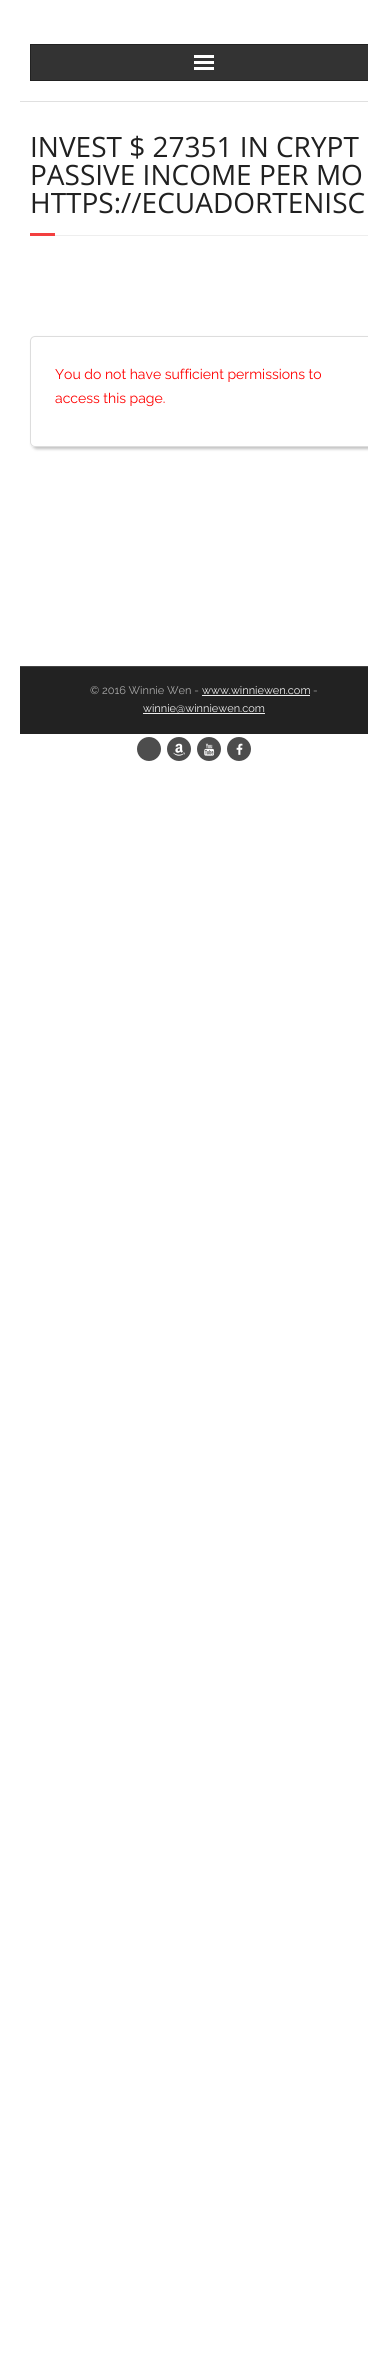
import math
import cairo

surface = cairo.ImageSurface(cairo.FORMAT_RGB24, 368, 2365)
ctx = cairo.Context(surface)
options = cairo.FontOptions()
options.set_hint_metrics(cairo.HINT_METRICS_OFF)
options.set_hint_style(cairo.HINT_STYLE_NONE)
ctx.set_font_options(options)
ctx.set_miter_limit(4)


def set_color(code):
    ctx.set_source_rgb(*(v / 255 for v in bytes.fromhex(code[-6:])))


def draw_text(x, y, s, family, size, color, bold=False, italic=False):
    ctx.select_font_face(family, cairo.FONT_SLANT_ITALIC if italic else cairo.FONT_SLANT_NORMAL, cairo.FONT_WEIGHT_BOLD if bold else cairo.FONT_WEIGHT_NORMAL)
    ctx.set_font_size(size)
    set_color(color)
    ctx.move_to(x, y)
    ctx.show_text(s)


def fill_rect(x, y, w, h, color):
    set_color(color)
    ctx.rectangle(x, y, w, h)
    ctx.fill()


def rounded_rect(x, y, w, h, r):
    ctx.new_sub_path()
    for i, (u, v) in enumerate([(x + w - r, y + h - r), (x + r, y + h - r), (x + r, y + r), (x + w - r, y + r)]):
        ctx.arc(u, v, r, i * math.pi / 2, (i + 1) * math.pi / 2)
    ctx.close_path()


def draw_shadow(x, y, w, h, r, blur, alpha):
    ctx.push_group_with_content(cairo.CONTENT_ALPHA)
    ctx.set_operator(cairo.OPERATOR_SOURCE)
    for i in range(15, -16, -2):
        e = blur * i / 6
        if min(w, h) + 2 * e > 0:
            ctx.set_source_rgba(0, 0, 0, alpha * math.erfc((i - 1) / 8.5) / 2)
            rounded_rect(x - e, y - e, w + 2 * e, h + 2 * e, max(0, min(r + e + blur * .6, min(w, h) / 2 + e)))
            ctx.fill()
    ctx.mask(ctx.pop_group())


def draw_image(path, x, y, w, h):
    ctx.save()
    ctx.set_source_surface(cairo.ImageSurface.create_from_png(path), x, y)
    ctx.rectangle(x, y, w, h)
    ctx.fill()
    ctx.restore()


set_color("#ffffff")
ctx.paint()
fill_rect(20, 101, 348, 1, "#e0e0e0")
set_color("#333333")
ctx.rectangle(30.5, 44.5, 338, 36)
ctx.fill_preserve()
set_color("#222222")
ctx.set_line_width(1)
ctx.stroke()
fill_rect(194, 55, 20, 3, "#ffffff")
fill_rect(194, 61, 20, 3, "#ffffff")
fill_rect(194, 67, 20, 3, "#ffffff")
draw_text(30, 157, "INVEST $ 27351 IN CRYPT", "Open Sans", 28, "#202020")
draw_text(30, 185, "PASSIVE INCOME PER MO", "Open Sans", 28, "#202020")
draw_text(30, 213, "HTTPS://ECUADORTENISC", "Open Sans", 28, "#202020")
fill_rect(30, 233, 25, 3, "#f33f3f")
fill_rect(55, 235, 313, 1, "#eeeeee")
ctx.save()
ctx.set_fill_rule(cairo.FILL_RULE_EVEN_ODD)
ctx.new_path()
ctx.move_to(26, 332)
ctx.line_to(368, 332)
ctx.line_to(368, 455)
ctx.line_to(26, 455)
ctx.close_path()
ctx.move_to(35, 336)
ctx.line_to(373, 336)
ctx.curve_to(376, 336, 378, 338, 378, 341)
ctx.line_to(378, 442)
ctx.curve_to(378, 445, 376, 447, 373, 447)
ctx.line_to(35, 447)
ctx.curve_to(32, 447, 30, 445, 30, 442)
ctx.line_to(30, 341)
ctx.curve_to(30, 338, 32, 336, 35, 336)
ctx.close_path()
ctx.clip()
set_color("#000000")
draw_shadow(32, 338, 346, 111, 5, 1.5, 0.25)
ctx.restore()
rounded_rect(30.5, 336.5, 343, 110, 4.5)
set_color("#dddddd")
ctx.stroke()
draw_text(55, 379, "You do not have sufficient permissions to", "Raleway Thin", 14, "#ff0000")
draw_text(55, 403, "access this page.", "Raleway Thin", 14, "#ff0000")
fill_rect(20, 667, 348, 67, "#222222")
fill_rect(20, 666, 348, 1, "#444444")
draw_text(90, 694, "© 2016 Winnie Wen -", "Raleway Thin", 11, "#aaaaaa")
draw_text(202, 694, "www.winniewen.com", "Raleway Thin", 11, "#eeeeee")
fill_rect(202, 695, 108, 1, "#eeeeee")
draw_text(313, 694, "-", "Raleway Thin", 11, "#aaaaaa")
fill_rect(143, 713, 122, 1, "#eeeeee")
draw_text(143, 712, "winnie@winniewen.com", "Raleway Thin", 11, "#eeeeee")
set_color("#4d4d4d")
ctx.new_path()
ctx.arc(149, 749, 12, 0, 2 * math.pi)
ctx.fill()
ctx.arc(179, 749, 12, 0, 2 * math.pi)
ctx.fill()
draw_image("assets/img1.png", 173, 743, 12, 13)
ctx.arc(209, 749, 12, 0, 2 * math.pi)
ctx.fill()
draw_image("assets/img2.png", 204, 743, 11, 13)
ctx.arc(239, 749, 12, 0, 2 * math.pi)
ctx.fill()
draw_image("assets/img3.png", 236, 743, 7, 12)
surface.write_to_png("output.png")
